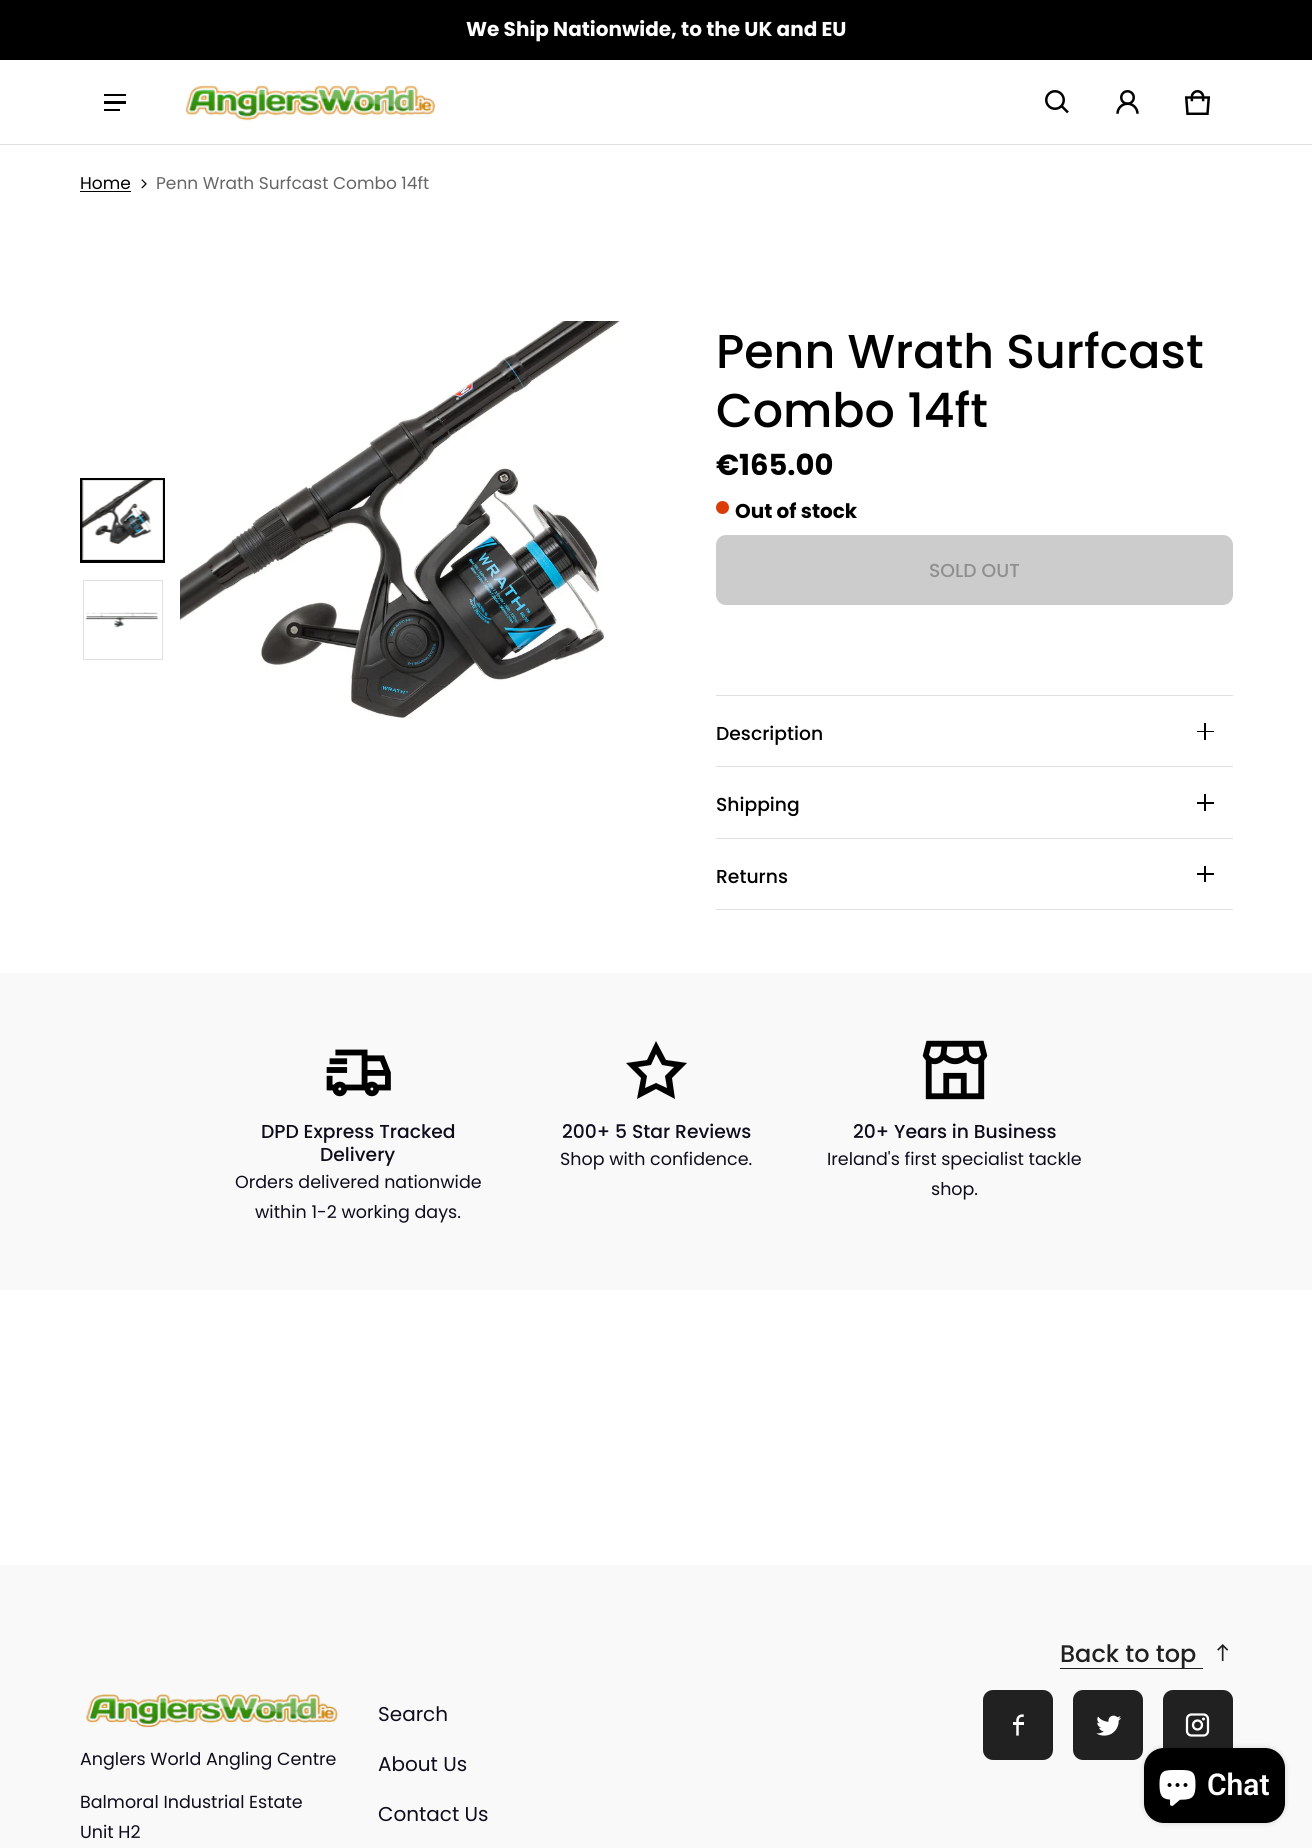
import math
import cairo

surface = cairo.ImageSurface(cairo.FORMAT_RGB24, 1312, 1848)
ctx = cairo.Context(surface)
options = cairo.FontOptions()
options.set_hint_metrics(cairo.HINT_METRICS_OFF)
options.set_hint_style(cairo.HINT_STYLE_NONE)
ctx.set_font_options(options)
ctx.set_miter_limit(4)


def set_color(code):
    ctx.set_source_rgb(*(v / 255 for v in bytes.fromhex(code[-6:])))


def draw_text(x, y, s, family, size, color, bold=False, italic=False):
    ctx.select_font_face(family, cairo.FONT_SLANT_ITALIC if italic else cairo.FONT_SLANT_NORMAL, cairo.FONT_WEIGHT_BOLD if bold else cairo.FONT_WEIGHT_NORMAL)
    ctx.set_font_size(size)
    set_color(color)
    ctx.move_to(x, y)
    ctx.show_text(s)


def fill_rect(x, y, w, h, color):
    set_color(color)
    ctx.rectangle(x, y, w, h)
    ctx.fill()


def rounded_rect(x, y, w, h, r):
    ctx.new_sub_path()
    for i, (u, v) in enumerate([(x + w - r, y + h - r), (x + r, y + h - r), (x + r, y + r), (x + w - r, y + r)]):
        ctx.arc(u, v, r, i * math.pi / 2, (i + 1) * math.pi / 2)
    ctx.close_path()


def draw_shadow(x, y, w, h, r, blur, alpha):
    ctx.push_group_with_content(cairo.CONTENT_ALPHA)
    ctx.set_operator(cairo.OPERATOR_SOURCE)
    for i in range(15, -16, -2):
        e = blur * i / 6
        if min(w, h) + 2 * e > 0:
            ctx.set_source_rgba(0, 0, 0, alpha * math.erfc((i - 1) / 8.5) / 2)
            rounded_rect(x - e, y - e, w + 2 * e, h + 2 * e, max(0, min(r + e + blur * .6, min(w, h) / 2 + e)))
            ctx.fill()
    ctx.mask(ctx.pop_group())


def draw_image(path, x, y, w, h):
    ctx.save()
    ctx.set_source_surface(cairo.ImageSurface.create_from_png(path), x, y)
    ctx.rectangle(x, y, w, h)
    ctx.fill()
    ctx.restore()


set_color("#ffffff")
ctx.paint()
fill_rect(0, 0, 1312, 60, "#000000")
draw_text(466, 36, "We Ship Nationwide, to the UK and EU", "Poppins", 20, "#ffffff", bold=True)
fill_rect(0, 144, 1312, 1, "#e0e0e0")
fill_rect(104, 94, 22, 2, "#000000")
fill_rect(104, 101, 22, 3, "#000000")
fill_rect(104, 109, 16, 2, "#000000")
draw_image("assets/img1.png", 185, 85, 250, 36)
draw_image("assets/img2.png", 1045, 90, 24, 24)
draw_image("assets/img3.png", 1116, 90, 23, 24)
draw_image("assets/img4.png", 1184, 90, 27, 25)
draw_text(80, 189, "Home", "Poppins", 17, "#000000")
fill_rect(80, 191, 51, 1, "#000000")
draw_image("assets/img5.png", 141, 179, 6, 10)
draw_text(156, 189, "Penn Wrath Surfcast Combo 14ft", "Poppins", 17, "#666666")
ctx.rectangle(81.5, 479.5, 82, 82)
set_color("#000000")
ctx.set_line_width(3)
ctx.stroke()
fill_rect(154, 480, 9, 80, "#ffffff")
draw_image("assets/img6.png", 82, 480, 72, 80)
ctx.rectangle(83.5, 480.5, 79, 79)
ctx.set_source_rgba(0, 0, 0, 0.12)
ctx.set_line_width(1)
ctx.stroke()
draw_image("assets/img7.png", 85, 612, 74, 16)
ctx.rectangle(83.5, 580.5, 79, 79)
set_color("#e0e0e0")
ctx.stroke()
draw_image("assets/img8.png", 180, 321, 440, 397)
draw_text(716, 368, "Penn Wrath Surfcast", "Poppins Medium", 47.5, "#000000")
draw_text(716, 427, "Combo 14ft", "Poppins Medium", 47.5, "#000000")
draw_text(716, 475, "€165.00", "Poppins", 29, "#000000", bold=True)
set_color("#da3d08")
ctx.new_path()
ctx.arc(722.5, 507.5, 6.5, 0, 2 * math.pi)
ctx.fill()
draw_text(735, 518, "Out of stock", "Poppins", 20, "#000000", bold=True)
set_color("#cccccc")
rounded_rect(716, 535, 517, 70, 10)
ctx.fill()
draw_text(929, 577, "SOLD OUT", "Poppins Medium", 18.75, "#8f8f8f")
fill_rect(716, 695, 517, 1, "#e0e0e0")
fill_rect(716, 766, 517, 1, "#e0e0e0")
draw_text(716, 740, "Description", "Poppins Medium", 18.75, "#000000")
fill_rect(1197, 731, 17, 1, "#000000")
fill_rect(1204, 723, 2, 17, "#000000")
fill_rect(716, 838, 517, 1, "#e0e0e0")
draw_text(716, 811, "Shipping", "Poppins Medium", 18.75, "#000000")
fill_rect(1197, 802, 17, 2, "#000000")
fill_rect(1204, 794, 2, 17, "#000000")
fill_rect(716, 909, 517, 1, "#e0e0e0")
draw_text(716, 883, "Returns", "Poppins Medium", 18.75, "#000000")
fill_rect(1197, 873, 17, 2, "#000000")
fill_rect(1204, 866, 2, 16, "#000000")
fill_rect(0, 973, 1312, 317, "#f9f9f9")
draw_image("assets/img9.png", 326, 1049, 65, 48)
draw_text(261, 1138, "DPD Express Tracked", "Poppins Medium", 18.75, "#0e0d1c")
draw_text(320, 1161, "Delivery", "Poppins Medium", 18.75, "#0e0d1c")
draw_text(235, 1188, "Orders delivered nationwide", "Poppins", 17.5, "#0e0d1c")
draw_text(255, 1218, "within 1-2 working days.", "Poppins", 17.5, "#0e0d1c")
set_color("#000000")
ctx.set_fill_rule(cairo.FILL_RULE_EVEN_ODD)
ctx.new_path()
ctx.move_to(666, 1060)
ctx.line_to(656, 1041)
ctx.line_to(647, 1060)
ctx.line_to(626, 1063)
ctx.line_to(641, 1078)
ctx.line_to(637, 1099)
ctx.line_to(656, 1089)
ctx.line_to(675, 1099)
ctx.line_to(672, 1078)
ctx.line_to(687, 1063)
ctx.close_path()
ctx.move_to(674, 1067)
ctx.line_to(662, 1065)
ctx.line_to(656, 1054)
ctx.line_to(651, 1065)
ctx.line_to(638, 1067)
ctx.line_to(647, 1076)
ctx.line_to(645, 1088)
ctx.line_to(656, 1083)
ctx.line_to(667, 1088)
ctx.line_to(665, 1076)
ctx.close_path()
ctx.fill()
draw_text(562, 1138, "200+ 5 Star Reviews", "Poppins Medium", 18.75, "#0e0d1c")
draw_text(560, 1165, "Shop with confidence.", "Poppins", 17.5, "#0e0d1c")
draw_image("assets/img10.png", 922, 1040, 66, 60)
draw_text(853, 1138, "20+ Years in Business", "Poppins Medium", 18.75, "#0e0d1c")
draw_text(827, 1165, "Ireland's first specialist tackle", "Poppins", 17.5, "#0e0d1c")
draw_text(931, 1195, "shop.", "Poppins", 17.5, "#0e0d1c")
fill_rect(0, 1565, 1312, 283, "#f9f9f9")
fill_rect(1060, 1668, 143, 1, "#212121")
draw_text(1060, 1662, "Back to top", "Poppins Medium", 24, "#212121")
draw_image("assets/img11.png", 1217, 1644, 12, 17)
draw_image("assets/img12.png", 86, 1694, 252, 34)
draw_text(80, 1765, "Anglers World Angling Centre", "Poppins", 17.5, "#0e0d1c")
draw_text(80, 1808, "Balmoral Industrial Estate", "Poppins", 17.5, "#0e0d1c")
draw_text(80, 1838, "Unit H2", "Poppins", 17.5, "#0e0d1c")
draw_text(378, 1721, "Search", "Poppins", 20, "#0e0d1c")
draw_text(378, 1771, "About Us", "Poppins", 20, "#0e0d1c")
draw_text(378, 1821, "Contact Us", "Poppins", 20, "#0e0d1c")
set_color("#212121")
rounded_rect(983, 1690, 70, 70, 10)
ctx.fill()
draw_image("assets/img13.png", 1013, 1714, 11, 22)
rounded_rect(1073, 1690, 70, 70, 10)
ctx.fill()
draw_image("assets/img14.png", 1096, 1715, 26, 21)
rounded_rect(1163, 1690, 70, 70, 10)
ctx.fill()
draw_image("assets/img15.png", 1185, 1713, 25, 24)
set_color("#000000")
draw_shadow(1144, 1748, 141, 75, 20, 3, 0.15)
set_color("#000000")
rounded_rect(1144, 1748, 141, 75, 20)
ctx.fill()
draw_image("assets/img16.png", 1159, 1770, 37, 36)
draw_text(1207, 1795, "Chat", "Roboto SemiBold", 30, "#ffffff")
surface.write_to_png("output.png")
